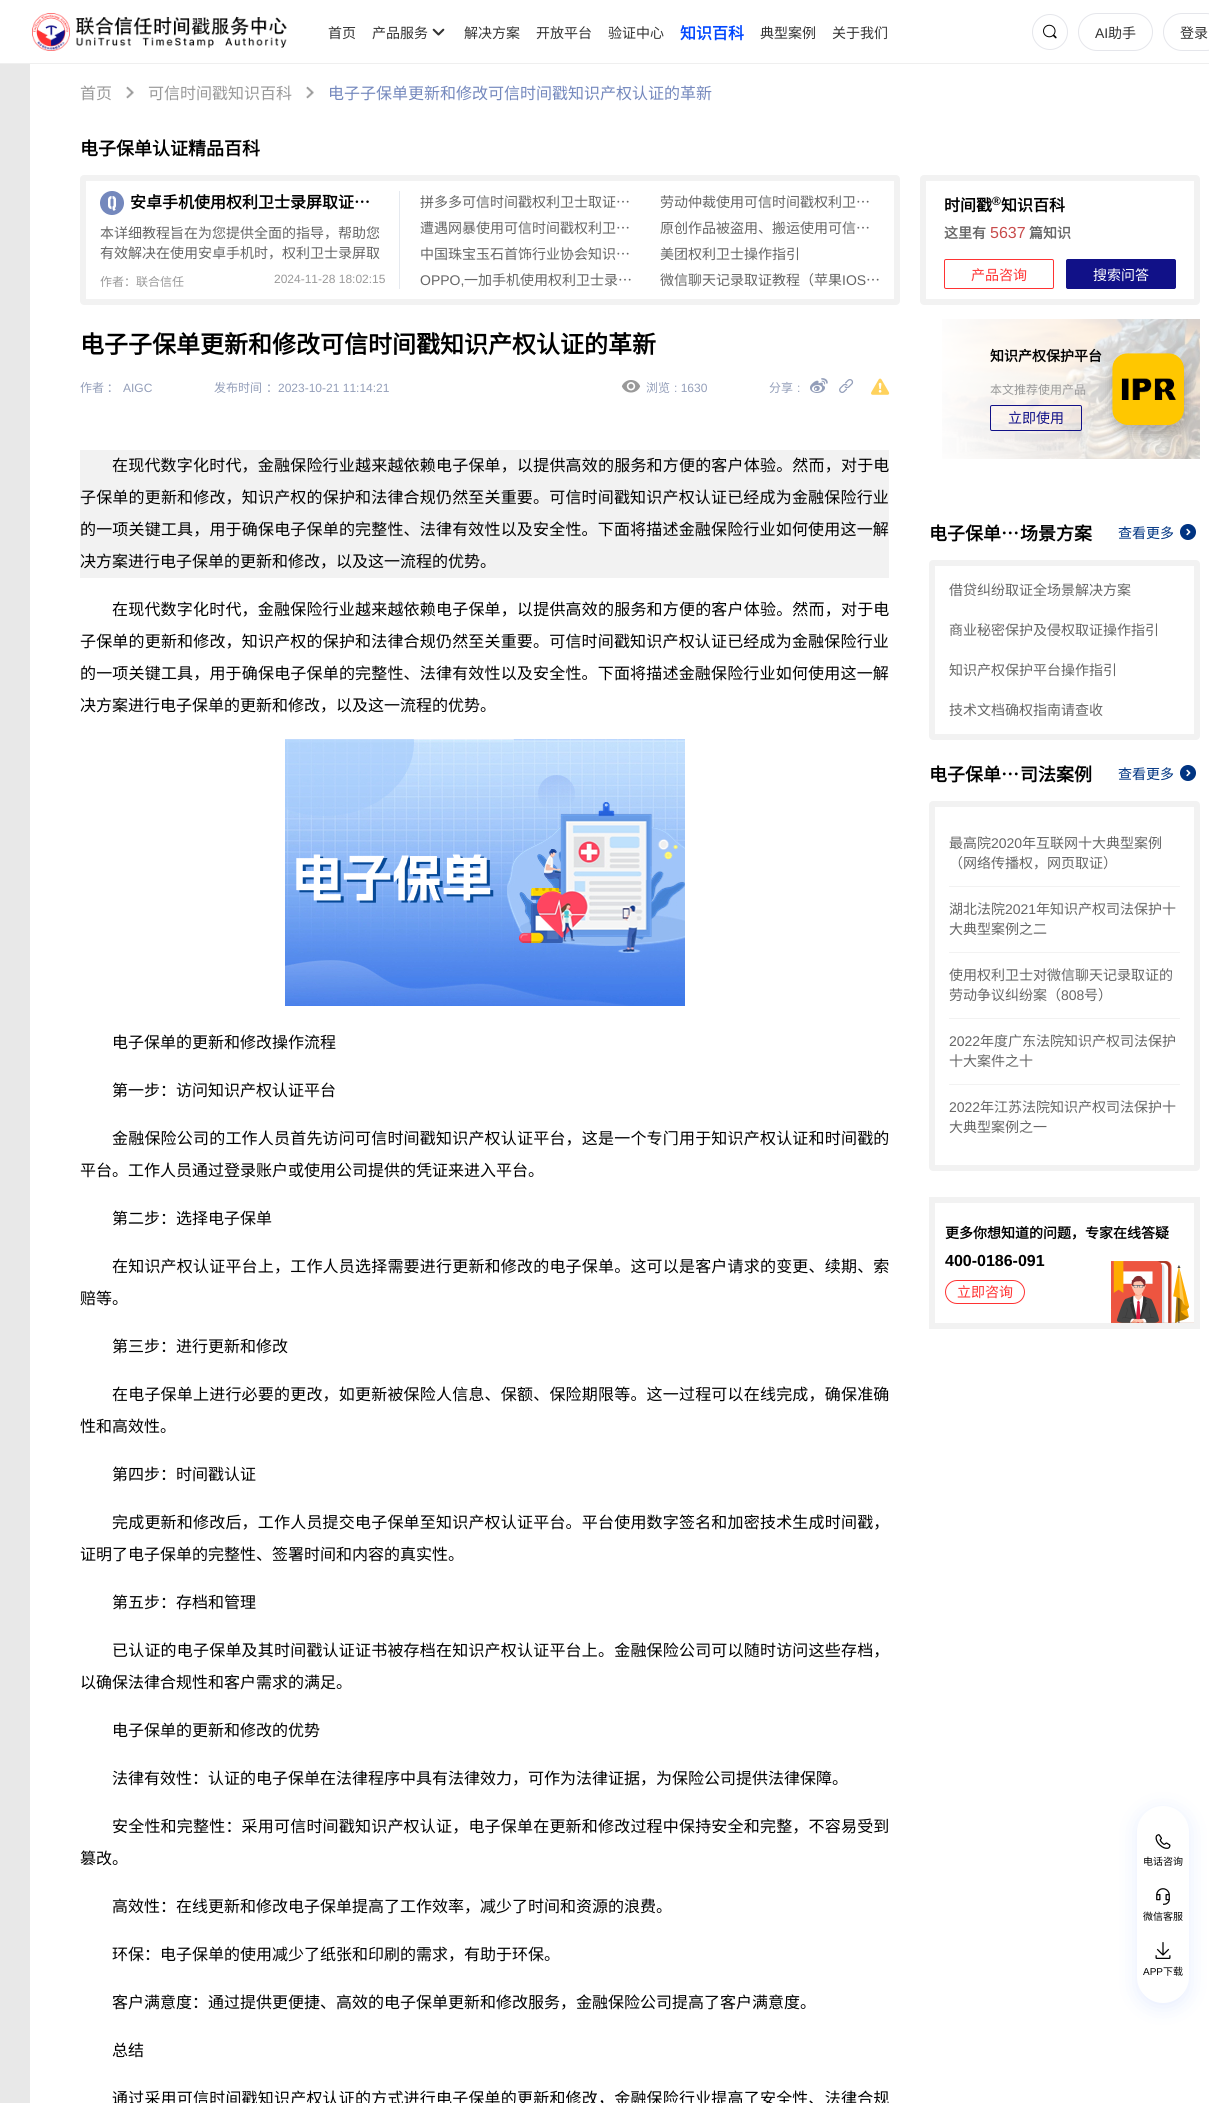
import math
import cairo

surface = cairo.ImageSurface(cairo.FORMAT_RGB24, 1209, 2103)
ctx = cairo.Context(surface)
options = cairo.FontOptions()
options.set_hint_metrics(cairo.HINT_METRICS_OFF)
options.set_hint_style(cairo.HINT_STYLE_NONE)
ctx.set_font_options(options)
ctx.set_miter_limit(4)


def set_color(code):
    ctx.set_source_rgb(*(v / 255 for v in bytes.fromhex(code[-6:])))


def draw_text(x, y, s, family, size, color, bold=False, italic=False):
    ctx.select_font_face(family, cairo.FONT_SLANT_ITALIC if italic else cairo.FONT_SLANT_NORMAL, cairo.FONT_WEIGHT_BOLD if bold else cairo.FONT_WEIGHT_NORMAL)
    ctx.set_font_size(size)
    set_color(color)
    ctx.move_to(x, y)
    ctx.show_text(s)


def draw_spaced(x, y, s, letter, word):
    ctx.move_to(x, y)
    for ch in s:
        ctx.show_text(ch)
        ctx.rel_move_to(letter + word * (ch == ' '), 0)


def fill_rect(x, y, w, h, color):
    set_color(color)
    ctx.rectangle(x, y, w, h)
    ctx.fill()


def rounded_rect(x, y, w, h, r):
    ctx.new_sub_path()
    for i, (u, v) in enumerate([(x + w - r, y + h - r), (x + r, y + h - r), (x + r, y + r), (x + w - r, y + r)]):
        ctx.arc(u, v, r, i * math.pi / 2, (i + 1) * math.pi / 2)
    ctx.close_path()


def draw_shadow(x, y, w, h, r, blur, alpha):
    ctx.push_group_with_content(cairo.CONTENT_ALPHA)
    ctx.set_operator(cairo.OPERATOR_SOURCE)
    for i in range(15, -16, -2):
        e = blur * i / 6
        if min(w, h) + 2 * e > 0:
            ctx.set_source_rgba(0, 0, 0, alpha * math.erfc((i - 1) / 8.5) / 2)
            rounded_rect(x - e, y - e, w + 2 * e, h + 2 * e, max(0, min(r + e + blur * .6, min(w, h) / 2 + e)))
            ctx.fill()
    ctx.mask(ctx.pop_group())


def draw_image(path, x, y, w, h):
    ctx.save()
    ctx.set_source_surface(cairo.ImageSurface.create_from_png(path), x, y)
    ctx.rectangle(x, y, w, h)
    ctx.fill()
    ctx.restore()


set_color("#e8e8e8")
ctx.paint()
fill_rect(0, 0, 1209, 63, "#ffffff")
draw_image("assets/img1.png", 32, 13, 255, 38)
draw_text(328, 38, "首页", "Noto Sans CJK SC", 14, "#333333")
draw_text(372, 38, "产品服务", "Noto Sans CJK SC", 14, "#333333")
draw_image("assets/img2.png", 432, 28, 13, 8)
draw_text(464, 38, "解决方案", "Noto Sans CJK SC", 14, "#333333")
draw_text(536, 38, "开放平台", "Noto Sans CJK SC", 14, "#333333")
draw_text(608, 38, "验证中心", "Noto Sans CJK SC", 14, "#333333")
draw_text(680, 39, "知识百科", "Noto Sans CJK SC", 16, "#0047ff", bold=True)
draw_text(760, 38, "典型案例", "Noto Sans CJK SC", 14, "#333333")
draw_text(832, 38, "关于我们", "Noto Sans CJK SC", 14, "#333333")
ctx.new_path()
ctx.arc(1050, 32, 17.5, 0, 2 * math.pi)
set_color("#e5e6eb")
ctx.set_line_width(1)
ctx.stroke()
draw_image("assets/img3.png", 1043, 24, 14, 15)
rounded_rect(1078.5, 13.5, 74, 37, 18.5)
ctx.stroke()
draw_text(1095, 38, "AI", "Liberation Sans", 14, "#333333")
draw_text(1108, 38, "助手", "Noto Sans CJK SC", 14, "#333333")
rounded_rect(1163.5, 13.5, 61, 37, 18.5)
set_color("#e5e6eb")
ctx.stroke()
draw_text(1180, 38, "登录", "Noto Sans CJK SC", 14, "#333333")
fill_rect(0, 63, 1209, 1, "#efefef")
fill_rect(30, 64, 1179, 2039, "#ffffff")
draw_text(80, 99, "首页", "Noto Sans CJK SC", 16, "#999999")
draw_image("assets/img4.png", 126, 86, 8, 13)
draw_text(148, 99, "可信时间戳知识百科", "Noto Sans CJK SC", 16, "#999999")
draw_image("assets/img4.png", 306, 86, 8, 13)
draw_text(328, 99, "电子子保单更新和修改可信时间戳知识产权认证的革新", "Noto Sans CJK SC", 16, "#7488bd")
draw_text(80, 155, "电子保单认证精品百科", "Noto Sans CJK SC", 18, "#000000", bold=True)
rounded_rect(83, 178, 814, 124, 1)
set_color("#f2f2f2")
ctx.set_line_width(6)
ctx.stroke()
fill_rect(399, 191, 1, 98, "#e5e9ef")
draw_image("assets/img5.png", 100, 191, 24, 24)
draw_text(130, 208, "安卓手机使用权利卫士录屏取证…", "Noto Sans CJK SC", 16, "#000000", bold=True)
draw_text(100, 238, "本详细教程旨在为您提供全面的指导，帮助您", "Noto Sans CJK SC", 14, "#666666")
draw_text(100, 258, "有效解决在使用安卓手机时，权利卫士录屏取", "Noto Sans CJK SC", 14, "#666666")
draw_text(100, 286, "作者：联合信任", "Noto Sans CJK SC", 12, "#999999")
draw_text(274, 283, "2024-11-28 18:02:15", "Liberation Sans", 12, "#999999")
draw_text(420, 207, "拼多多可信时间戳权利卫士取证…", "Noto Sans CJK SC", 14, "#666666")
draw_text(660, 207, "劳动仲裁使用可信时间戳权利卫…", "Noto Sans CJK SC", 14, "#666666")
draw_text(420, 233, "遭遇网暴使用可信时间戳权利卫…", "Noto Sans CJK SC", 14, "#666666")
draw_text(660, 233, "原创作品被盗用、搬运使用可信…", "Noto Sans CJK SC", 14, "#666666")
draw_text(420, 259, "中国珠宝玉石首饰行业协会知识…", "Noto Sans CJK SC", 14, "#666666")
draw_text(660, 259, "美团权利卫士操作指引", "Noto Sans CJK SC", 14, "#666666")
draw_text(420, 285, "OPPO,", "Liberation Sans", 14, "#666666")
draw_text(464, 285, "一加手机使用权利卫士录…", "Noto Sans CJK SC", 14, "#666666")
draw_text(660, 285, "微信聊天记录取证教程（苹果", "Noto Sans CJK SC", 14, "#666666")
draw_text(842, 285, "IOS", "Liberation Sans", 14, "#666666")
draw_text(866, 285, "…", "Noto Sans CJK SC", 14, "#666666")
rounded_rect(923, 178, 274, 124, 1)
set_color("#f2f2f2")
ctx.stroke()
draw_text(944, 211, "时间戳", "Noto Sans CJK SC", 16, "#000000", bold=True)
draw_text(992, 205, "®", "Liberation Sans", 12, "#000000", bold=True)
draw_text(1001, 211, "知识百科", "Noto Sans CJK SC", 16, "#000000", bold=True)
draw_text(944, 238, "这里有", "Noto Sans CJK SC", 14, "#666666", bold=True)
draw_text(990, 238, "5637", "Liberation Sans", 16, "#c84c4c")
draw_text(1029, 238, "篇知识", "Noto Sans CJK SC", 14, "#666666", bold=True)
rounded_rect(944.5, 259.5, 109, 29, 1.5)
set_color("#ff3333")
ctx.set_line_width(1)
ctx.stroke()
draw_text(971, 280, "产品咨询", "Noto Sans CJK SC", 14, "#ff3333")
set_color("#111188")
rounded_rect(1066.5, 259.5, 109, 29, 1.5)
ctx.fill_preserve()
ctx.stroke()
draw_text(1093, 280, "搜索问答", "Noto Sans CJK SC", 14, "#ffffff")
draw_text(80, 353, "电子子保单更新和修改可信时间戳知识产权认证的革新", "Noto Sans CJK SC", 24, "#000000", bold=True)
draw_text(80, 392, "作者 ：", "Noto Sans CJK SC", 12, "#939eb9")
draw_text(123, 392, "AIGC", "Liberation Sans", 12, "#939eb9")
draw_text(214, 392, "发布时间", "Noto Sans CJK SC", 12, "#939eb9")
draw_text(266, 392, "：", "Noto Sans CJK SC", 12, "#939eb9")
draw_text(278, 392, "2023-10-21 11:14:21", "Liberation Sans", 12, "#939eb9")
draw_image("assets/img6.png", 621, 380, 20, 13)
draw_text(646, 392, "浏览", "Noto Sans CJK SC", 12, "#939eb9")
draw_text(674, 392, ": 1630", "Liberation Sans", 12, "#939eb9")
draw_text(769, 392, "分享", "Noto Sans CJK SC", 12, "#939eb9")
draw_text(797, 392, ":", "Liberation Sans", 12, "#939eb9")
draw_image("assets/img7.png", 810, 378, 18, 15)
draw_image("assets/img8.png", 839, 379, 15, 14)
draw_image("assets/img9.png", 871, 378, 19, 17)
fill_rect(80, 450, 809, 128, "#f2f2f2")
ctx.select_font_face("Noto Sans CJK SC")
ctx.set_font_size(16)
set_color("#000000")
draw_spaced(112, 471, "在现代数字化时代，金融保险行业越来越依赖电子保单，以提供高效的服务和方便的客户体验。然而，对于电", 0.2, 0)
draw_spaced(80, 503, "子保单的更新和修改，知识产权的保护和法律合规仍然至关重要。可信时间戳知识产权认证已经成为金融保险行业", 0.18, 0)
draw_spaced(80, 535, "的一项关键工具，用于确保电子保单的完整性、法律有效性以及安全性。下面将描述金融保险行业如何使用这一解", 0.18, 0)
draw_text(80, 567, "决方案进行电子保单的更新和修改，以及这一流程的优势。", "Noto Sans CJK SC", 16, "#000000")
draw_spaced(112, 615, "在现代数字化时代，金融保险行业越来越依赖电子保单，以提供高效的服务和方便的客户体验。然而，对于电", 0.2, 0)
draw_spaced(80, 647, "子保单的更新和修改，知识产权的保护和法律合规仍然至关重要。可信时间戳知识产权认证已经成为金融保险行业", 0.18, 0)
draw_spaced(80, 679, "的一项关键工具，用于确保电子保单的完整性、法律有效性以及安全性。下面将描述金融保险行业如何使用这一解", 0.18, 0)
draw_text(80, 711, "决方案进行电子保单的更新和修改，以及这一流程的优势。", "Noto Sans CJK SC", 16, "#000000")
draw_image("assets/img10.png", 285, 739, 400, 267)
draw_text(112, 1048, "电子保单的更新和修改操作流程", "Noto Sans CJK SC", 16, "#000000")
draw_text(112, 1096, "第一步：访问知识产权认证平台", "Noto Sans CJK SC", 16, "#000000")
draw_spaced(112, 1144, "金融保险公司的工作人员首先访问可信时间戳知识产权认证平台，这是一个专门用于知识产权认证和时间戳的", 0.2, 0)
draw_text(80, 1176, "平台。工作人员通过登录账户或使用公司提供的凭证来进入平台。", "Noto Sans CJK SC", 16, "#000000")
draw_text(112, 1224, "第二步：选择电子保单", "Noto Sans CJK SC", 16, "#000000")
draw_spaced(112, 1272, "在知识产权认证平台上，工作人员选择需要进行更新和修改的电子保单。这可以是客户请求的变更、续期、索", 0.2, 0)
draw_text(80, 1304, "赔等。", "Noto Sans CJK SC", 16, "#000000")
draw_text(112, 1352, "第三步：进行更新和修改", "Noto Sans CJK SC", 16, "#000000")
draw_spaced(112, 1400, "在电子保单上进行必要的更改，如更新被保险人信息、保额、保险期限等。这一过程可以在线完成，确保准确", 0.2, 0)
draw_text(80, 1432, "性和高效性。", "Noto Sans CJK SC", 16, "#000000")
draw_text(112, 1480, "第四步：时间戳认证", "Noto Sans CJK SC", 16, "#000000")
draw_spaced(112, 1528, "完成更新和修改后，工作人员提交电子保单至知识产权认证平台。平台使用数字签名和加密技术生成时间戳，", 0.2, 0)
draw_text(80, 1560, "证明了电子保单的完整性、签署时间和内容的真实性。", "Noto Sans CJK SC", 16, "#000000")
draw_text(112, 1608, "第五步：存档和管理", "Noto Sans CJK SC", 16, "#000000")
draw_spaced(112, 1656, "已认证的电子保单及其时间戳认证证书被存档在知识产权认证平台上。金融保险公司可以随时访问这些存档，", 0.2, 0)
draw_text(80, 1688, "以确保法律合规性和客户需求的满足。", "Noto Sans CJK SC", 16, "#000000")
draw_text(112, 1736, "电子保单的更新和修改的优势", "Noto Sans CJK SC", 16, "#000000")
draw_text(112, 1784, "法律有效性：认证的电子保单在法律程序中具有法律效力，可作为法律证据，为保险公司提供法律保障。", "Noto Sans CJK SC", 16, "#000000")
draw_spaced(112, 1832, "安全性和完整性：采用可信时间戳知识产权认证，电子保单在更新和修改过程中保持安全和完整，不容易受到", 0.2, 0)
draw_text(80, 1864, "篡改。", "Noto Sans CJK SC", 16, "#000000")
draw_text(112, 1912, "高效性：在线更新和修改电子保单提高了工作效率，减少了时间和资源的浪费。", "Noto Sans CJK SC", 16, "#000000")
draw_text(112, 1960, "环保：电子保单的使用减少了纸张和印刷的需求，有助于环保。", "Noto Sans CJK SC", 16, "#000000")
draw_text(112, 2008, "客户满意度：通过提供更便捷、高效的电子保单更新和修改服务，金融保险公司提高了客户满意度。", "Noto Sans CJK SC", 16, "#000000")
draw_text(112, 2056, "总结", "Noto Sans CJK SC", 16, "#000000")
draw_spaced(112, 2104, "通过采用可信时间戳知识产权认证的方式进行电子保单的更新和修改，金融保险行业提高了安全性、法律合规", 0.2, 0)
draw_image("assets/img11.png", 942, 319, 258, 140)
draw_text(990, 361, "知识产权保护平台", "Noto Sans CJK SC", 14, "#000000", bold=True)
draw_text(990, 394, "本文推荐使用产品", "Noto Sans CJK SC", 12, "#999999")
rounded_rect(990.5, 405.5, 91, 25, 1.5)
set_color("#111188")
ctx.stroke()
draw_text(1008, 423, "立即使用", "Noto Sans CJK SC", 14, "#111188")
set_color("#000000")
draw_shadow(1112, 361, 72, 72, 16, 6, 0.25)
draw_image("assets/img12.png", 1112, 353, 72, 72)
draw_text(929, 540, "电子保单…", "Noto Sans CJK SC", 18, "#000000", bold=True)
draw_text(1020, 540, "场景方案", "Noto Sans CJK SC", 18, "#000000", bold=True)
draw_text(1118, 538, "查看更多", "Noto Sans CJK SC", 14, "#003482")
draw_image("assets/img13.png", 1180, 524, 16, 16)
rounded_rect(932, 563, 265, 174, 1)
set_color("#f2f2f2")
ctx.set_line_width(6)
ctx.stroke()
draw_text(949, 595, "借贷纠纷取证全场景解决方案", "Noto Sans CJK SC", 14, "#666666")
draw_text(949, 635, "商业秘密保护及侵权取证操作指引", "Noto Sans CJK SC", 14, "#666666")
draw_text(949, 675, "知识产权保护平台操作指引", "Noto Sans CJK SC", 14, "#666666")
draw_text(949, 715, "技术文档确权指南请查收", "Noto Sans CJK SC", 14, "#666666")
draw_text(929, 781, "电子保单…", "Noto Sans CJK SC", 18, "#000000", bold=True)
draw_text(1020, 781, "司法案例", "Noto Sans CJK SC", 18, "#000000", bold=True)
draw_text(1118, 779, "查看更多", "Noto Sans CJK SC", 14, "#003482")
draw_image("assets/img13.png", 1180, 765, 16, 16)
rounded_rect(932, 804, 265, 364, 1)
set_color("#f2f2f2")
ctx.stroke()
draw_text(949, 848, "最高院", "Noto Sans CJK SC", 14, "#666666")
draw_text(991, 848, "2020", "Liberation Sans", 14, "#666666")
draw_text(1022, 848, "年互联网十大典型案例", "Noto Sans CJK SC", 14, "#666666")
draw_text(949, 868, "（网络传播权，网页取证）", "Noto Sans CJK SC", 14, "#666666")
fill_rect(949, 886, 231, 1, "#f2f2f2")
draw_text(949, 914, "湖北法院", "Noto Sans CJK SC", 14, "#666666")
draw_text(1005, 914, "2021", "Liberation Sans", 14, "#666666")
draw_text(1036, 914, "年知识产权司法保护十", "Noto Sans CJK SC", 14, "#666666")
draw_text(949, 934, "大典型案例之二", "Noto Sans CJK SC", 14, "#666666")
fill_rect(949, 952, 231, 1, "#f2f2f2")
draw_text(949, 980, "使用权利卫士对微信聊天记录取证的", "Noto Sans CJK SC", 14, "#666666")
draw_text(949, 1000, "劳动争议纠纷案（", "Noto Sans CJK SC", 14, "#666666")
draw_text(1061, 1000, "808", "Liberation Sans", 14, "#666666")
draw_text(1084, 1000, "号）", "Noto Sans CJK SC", 14, "#666666")
fill_rect(949, 1018, 231, 1, "#f2f2f2")
draw_text(949, 1046, "2022", "Liberation Sans", 14, "#666666")
draw_text(980, 1046, "年度广东法院知识产权司法保护", "Noto Sans CJK SC", 14, "#666666")
draw_text(949, 1066, "十大案件之十", "Noto Sans CJK SC", 14, "#666666")
fill_rect(949, 1084, 231, 1, "#f2f2f2")
draw_text(949, 1112, "2022", "Liberation Sans", 14, "#666666")
draw_text(980, 1112, "年江苏法院知识产权司法保护十", "Noto Sans CJK SC", 14, "#666666")
draw_text(949, 1132, "大典型案例之一", "Noto Sans CJK SC", 14, "#666666")
ctx.rectangle(932, 1200, 265, 126)
set_color("#f2f2f2")
ctx.stroke()
draw_text(945, 1238, "更多你想知道的问题，专家在线答疑", "Noto Sans CJK SC", 14, "#000000", bold=True)
draw_text(945, 1266, "400-0186-091", "Liberation Sans", 16, "#000000", bold=True)
draw_image("assets/img14.png", 1111, 1261, 83, 62)
rounded_rect(945.5, 1280.5, 79, 23, 11.5)
set_color("#ff3333")
ctx.set_line_width(1)
ctx.stroke()
draw_text(957, 1297, "立即咨询", "Noto Sans CJK SC", 14, "#ff3333")
set_color("#0047ff")
draw_shadow(1137, 1810, 52, 197, 26, 10, 0.1)
set_color("#ffffff")
rounded_rect(1137, 1806, 52, 197, 26)
ctx.fill()
draw_image("assets/img15.png", 1155, 1834, 16, 15)
draw_text(1143, 1865, "电话咨询", "Noto Sans CJK SC", 10, "#000000")
draw_image("assets/img16.png", 1156, 1888, 14, 17)
draw_text(1143, 1920, "微信客服", "Noto Sans CJK SC", 10, "#000000")
draw_image("assets/img17.png", 1155, 1942, 16, 17)
draw_text(1143, 1975, "APP", "Liberation Sans", 10, "#000000")
draw_text(1163, 1975, "下载", "Noto Sans CJK SC", 10, "#000000")
surface.write_to_png("output.png")
